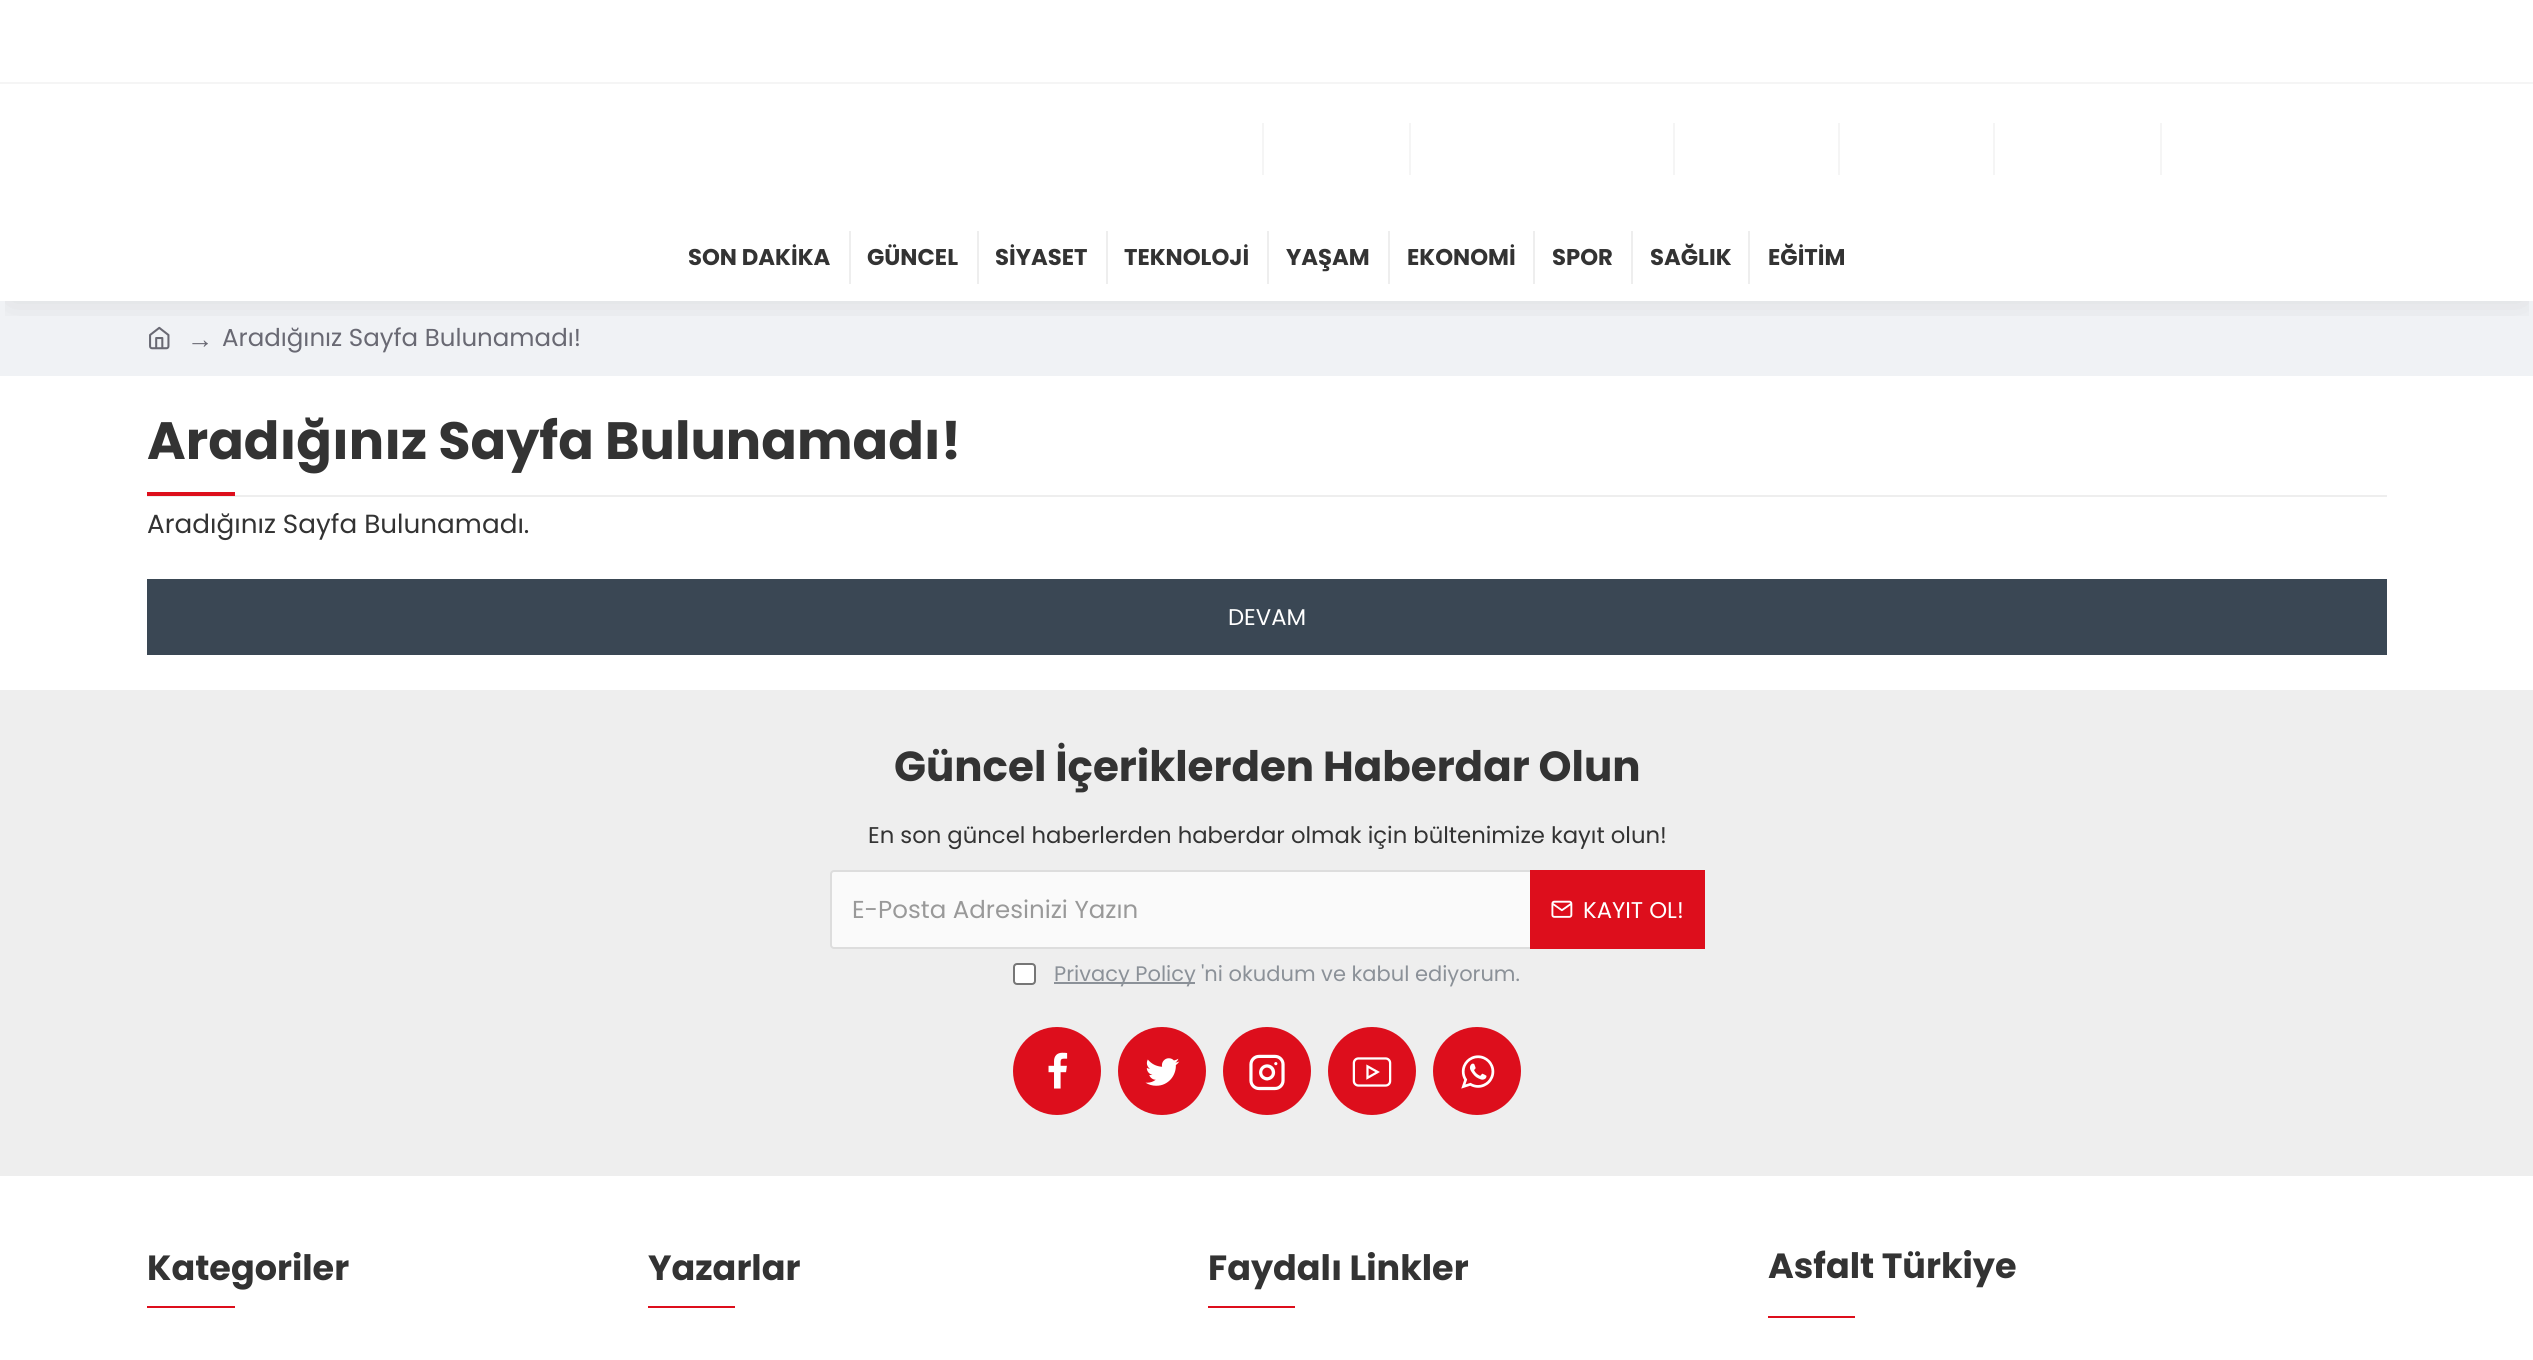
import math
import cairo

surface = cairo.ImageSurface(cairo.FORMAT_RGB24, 2533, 1360)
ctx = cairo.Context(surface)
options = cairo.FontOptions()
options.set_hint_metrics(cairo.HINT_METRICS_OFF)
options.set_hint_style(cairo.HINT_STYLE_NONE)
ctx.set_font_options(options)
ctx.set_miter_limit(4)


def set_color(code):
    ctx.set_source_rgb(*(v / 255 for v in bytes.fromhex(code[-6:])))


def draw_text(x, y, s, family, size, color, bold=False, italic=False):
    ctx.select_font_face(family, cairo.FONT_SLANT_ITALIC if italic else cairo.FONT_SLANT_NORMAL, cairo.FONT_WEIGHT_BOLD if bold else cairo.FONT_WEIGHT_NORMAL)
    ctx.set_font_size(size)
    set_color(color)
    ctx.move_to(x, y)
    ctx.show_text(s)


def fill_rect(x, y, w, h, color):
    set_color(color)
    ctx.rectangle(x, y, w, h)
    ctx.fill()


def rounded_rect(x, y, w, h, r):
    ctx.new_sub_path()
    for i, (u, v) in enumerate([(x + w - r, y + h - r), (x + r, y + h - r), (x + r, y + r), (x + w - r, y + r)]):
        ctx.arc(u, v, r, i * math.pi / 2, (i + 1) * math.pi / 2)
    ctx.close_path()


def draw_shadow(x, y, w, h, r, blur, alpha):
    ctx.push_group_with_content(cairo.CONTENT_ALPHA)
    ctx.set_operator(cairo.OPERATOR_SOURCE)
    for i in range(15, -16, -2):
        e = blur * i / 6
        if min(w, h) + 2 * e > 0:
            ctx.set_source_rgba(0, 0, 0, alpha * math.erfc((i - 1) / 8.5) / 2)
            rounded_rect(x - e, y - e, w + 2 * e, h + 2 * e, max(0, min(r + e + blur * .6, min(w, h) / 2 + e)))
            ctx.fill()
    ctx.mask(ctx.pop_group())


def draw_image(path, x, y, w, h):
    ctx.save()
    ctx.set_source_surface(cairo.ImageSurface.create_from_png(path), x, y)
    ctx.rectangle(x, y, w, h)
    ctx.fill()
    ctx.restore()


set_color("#ffffff")
ctx.paint()
fill_rect(0, 301, 2533, 75, "#f0f2f5")
draw_image("assets/img1.png", 149, 326, 21, 24)
ctx.save()
ctx.rectangle(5, 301, 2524, 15)
ctx.clip()
set_color("#000000")
draw_shadow(9, 14, 2516, 287, 0, 17.5, 0.1)
ctx.restore()
fill_rect(0, 82, 2533, 2, "#f5f5f5")
fill_rect(1262, 123, 2, 52, "#f5f5f5")
fill_rect(1409, 123, 2, 52, "#f5f5f5")
fill_rect(1673, 123, 2, 52, "#f5f5f5")
fill_rect(1838, 123, 2, 52, "#f5f5f5")
fill_rect(1993, 123, 2, 52, "#f5f5f5")
fill_rect(2160, 123, 2, 52, "#f5f5f5")
draw_text(688, 265, "SON DAKİKA", "Poppins", 22.75, "#333333", bold=True)
fill_rect(849, 231, 2, 53, "#eeeeee")
draw_text(867, 265, "GÜNCEL", "Poppins", 22.75, "#333333", bold=True)
fill_rect(977, 231, 2, 53, "#eeeeee")
draw_text(995, 265, "SİYASET", "Poppins", 22.75, "#333333", bold=True)
fill_rect(1106, 231, 2, 53, "#eeeeee")
draw_text(1124, 265, "TEKNOLOJİ", "Poppins", 22.75, "#333333", bold=True)
fill_rect(1267, 231, 2, 53, "#eeeeee")
draw_text(1286, 265, "YAŞAM", "Poppins", 22.75, "#333333", bold=True)
fill_rect(1388, 231, 2, 53, "#eeeeee")
draw_text(1407, 265, "EKONOMİ", "Poppins", 22.75, "#333333", bold=True)
fill_rect(1533, 231, 2, 53, "#eeeeee")
draw_text(1552, 265, "SPOR", "Poppins", 22.75, "#333333", bold=True)
fill_rect(1631, 231, 2, 53, "#eeeeee")
draw_text(1650, 265, "SAĞLIK", "Poppins", 22.75, "#333333", bold=True)
fill_rect(1748, 231, 2, 53, "#eeeeee")
draw_text(1768, 265, "EĞİTİM", "Poppins", 22.75, "#333333", bold=True)
draw_text(187, 348, "→", "Liberation Serif", 26.25, "#696973")
draw_text(222, 346, "Aradığınız Sayfa Bulunamadı!", "Poppins", 24.5, "#696973")
fill_rect(147, 495, 2240, 2, "#eeeeee")
draw_text(147, 459, "Aradığınız Sayfa Bulunamadı!", "Poppins", 52.5, "#333333", bold=True)
fill_rect(147, 492, 88, 4, "#dd0e1c")
draw_text(147, 533, "Aradığınız Sayfa Bulunamadı.", "Poppins", 26.25, "#333333")
fill_rect(147, 579, 2240, 76, "#3a4754")
draw_text(1228, 625, "DEVAM", "Poppins", 22.75, "#ffffff")
fill_rect(0, 690, 2533, 486, "#eeeeee")
draw_text(894, 781, "Güncel İçeriklerden Haberdar Olun", "Poppins", 42, "#333333", bold=True)
draw_text(868, 843, "En son güncel haberlerden haberdar olmak için bültenimize kayıt olun!", "Poppins", 22.75, "#333333")
set_color("#fafafa")
rounded_rect(831, 871, 873, 77, 3)
ctx.fill_preserve()
set_color("#dddddd")
ctx.stroke()
draw_text(852, 918, "E-Posta Adresinizi Yazın", "Poppins", 24.5, "#999999")
fill_rect(1530, 870, 175, 79, "#dd0e1c")
draw_image("assets/img2.png", 1551, 900, 22, 18)
draw_text(1583, 918, "KAYIT OL!", "Poppins", 22.75, "#ffffff")
rounded_rect(1014, 964, 21, 20, 3)
ctx.fill_preserve()
set_color("#767676")
ctx.stroke()
fill_rect(1054, 982, 141, 2, "#8b9198")
draw_text(1054, 981, "Privacy Policy", "Poppins", 21, "#8b9198")
draw_text(1201, 981, "'ni okudum ve kabul ediyorum.", "Poppins", 21, "#8b9198")
set_color("#dd0e1c")
ctx.new_path()
ctx.arc(1057, 1071, 44, 0, 2 * math.pi)
ctx.fill()
draw_image("assets/img3.png", 1048, 1052, 20, 37)
ctx.arc(1162, 1071, 44, 0, 2 * math.pi)
ctx.fill()
draw_image("assets/img4.png", 1145, 1058, 35, 28)
ctx.arc(1267, 1071, 44, 0, 2 * math.pi)
ctx.fill()
draw_image("assets/img5.png", 1249, 1054, 36, 37)
ctx.arc(1372, 1071, 44, 0, 2 * math.pi)
ctx.fill()
draw_image("assets/img6.png", 1352, 1057, 40, 30)
ctx.arc(1477, 1071, 44, 0, 2 * math.pi)
ctx.fill()
draw_image("assets/img7.png", 1461, 1055, 34, 34)
draw_text(147, 1280, "Kategoriler", "Poppins", 35, "#333333", bold=True)
fill_rect(147, 1306, 88, 2, "#dd0e1c")
draw_text(648, 1280, "Yazarlar", "Poppins", 35, "#333333", bold=True)
fill_rect(648, 1306, 87, 2, "#dd0e1c")
draw_text(1208, 1280, "Faydalı Linkler", "Poppins", 35, "#333333", bold=True)
fill_rect(1208, 1306, 87, 2, "#dd0e1c")
draw_text(1768, 1278, "Asfalt Türkiye", "Poppins", 35, "#333333", bold=True)
fill_rect(1768, 1316, 87, 2, "#dd0e1c")
surface.write_to_png("output.png")
